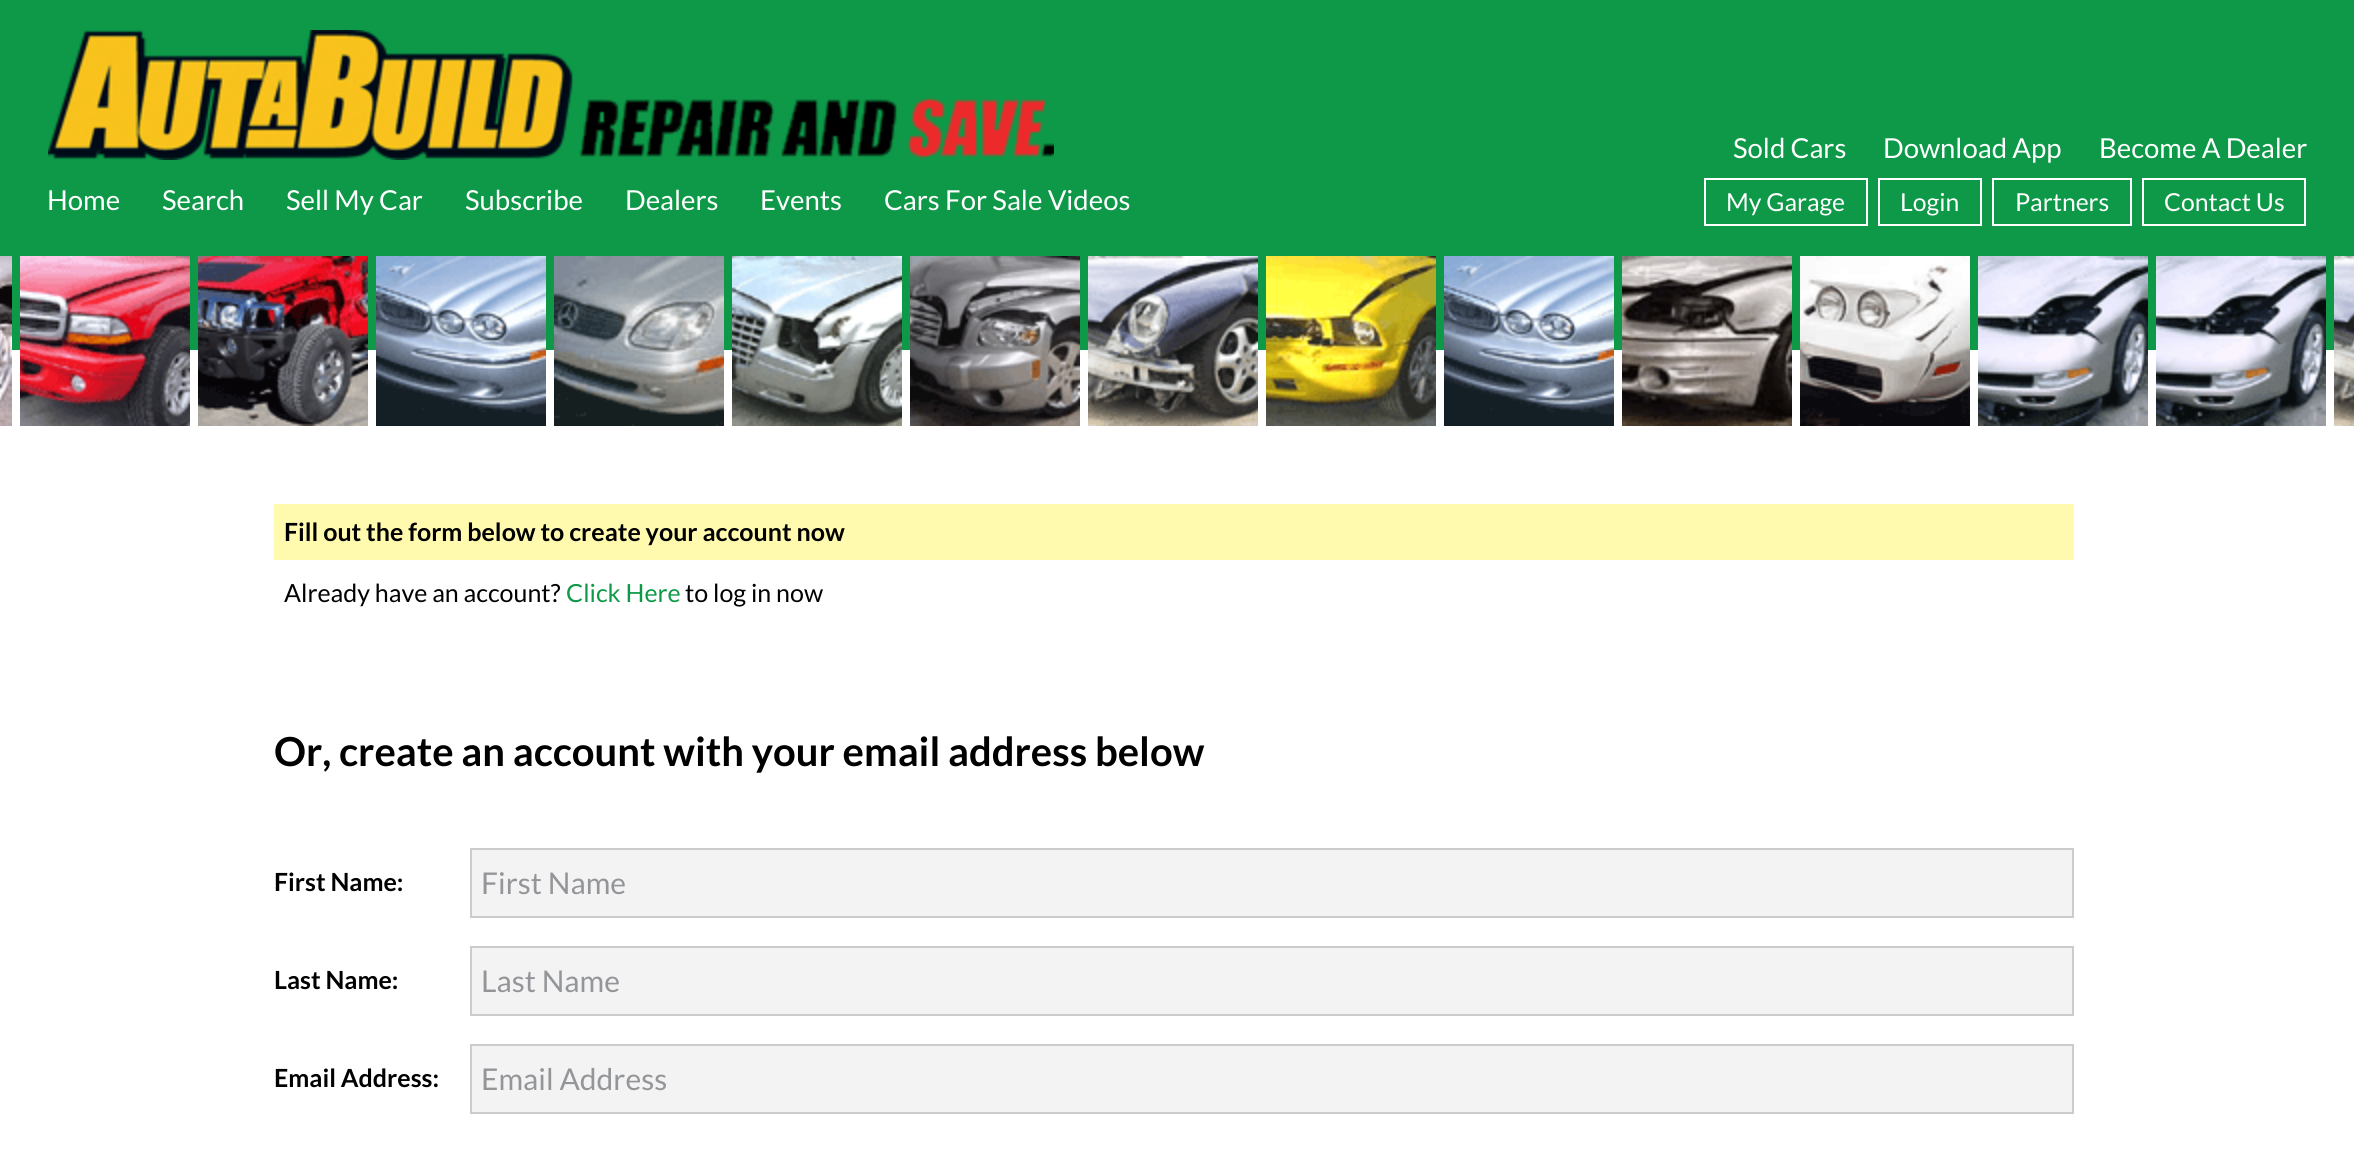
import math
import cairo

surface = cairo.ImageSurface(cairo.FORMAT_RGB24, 2354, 1167)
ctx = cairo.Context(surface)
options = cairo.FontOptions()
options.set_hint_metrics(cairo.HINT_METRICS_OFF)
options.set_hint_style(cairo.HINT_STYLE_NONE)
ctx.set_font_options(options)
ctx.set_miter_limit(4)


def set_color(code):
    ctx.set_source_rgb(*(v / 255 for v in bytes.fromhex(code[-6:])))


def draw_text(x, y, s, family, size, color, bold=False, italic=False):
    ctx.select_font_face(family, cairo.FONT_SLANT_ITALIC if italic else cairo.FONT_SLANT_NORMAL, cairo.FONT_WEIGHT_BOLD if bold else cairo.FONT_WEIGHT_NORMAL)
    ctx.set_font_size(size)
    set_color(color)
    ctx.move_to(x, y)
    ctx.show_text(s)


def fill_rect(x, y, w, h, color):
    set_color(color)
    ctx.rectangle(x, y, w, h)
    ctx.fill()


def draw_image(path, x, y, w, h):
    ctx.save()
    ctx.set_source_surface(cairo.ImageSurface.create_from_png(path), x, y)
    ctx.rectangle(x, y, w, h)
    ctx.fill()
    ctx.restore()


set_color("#ffffff")
ctx.paint()
fill_rect(0, 0, 2354, 256, "#0d9948")
draw_image("assets/img1.png", 48, 30, 1006, 130)
draw_text(47, 210, "Home", "Lato", 27.5, "#ffffff")
draw_text(162, 210, "Search", "Lato", 27.5, "#ffffff")
draw_text(286, 210, "Sell My Car", "Lato", 27.5, "#ffffff")
draw_text(465, 210, "Subscribe", "Lato", 27.5, "#ffffff")
draw_text(625, 210, "Dealers", "Lato", 27.5, "#ffffff")
draw_text(760, 210, "Events", "Lato", 27.5, "#ffffff")
draw_text(884, 210, "Cars For Sale Videos", "Lato", 27.5, "#ffffff")
draw_text(1733, 158, "Sold Cars", "Lato", 27.5, "#ffffff")
draw_text(1883, 158, "Download App", "Lato", 27.5, "#ffffff")
draw_text(2099, 158, "Become A Dealer", "Lato", 27.5, "#ffffff")
ctx.rectangle(1705, 179, 162, 46)
ctx.stroke()
draw_text(1726, 211, "My Garage", "Lato", 24.75, "#ffffff")
ctx.rectangle(1879, 179, 102, 46)
ctx.stroke()
draw_text(1900, 211, "Login", "Lato", 24.75, "#ffffff")
ctx.rectangle(1993, 179, 138, 46)
ctx.stroke()
draw_text(2015, 211, "Partners", "Lato", 24.75, "#ffffff")
ctx.rectangle(2143, 179, 162, 46)
ctx.stroke()
draw_text(2164, 211, "Contact Us", "Lato", 24.75, "#ffffff")
draw_image("assets/img2.png", 0, 256, 12, 170)
fill_rect(12, 256, 2322, 94, "#0d9948")
draw_image("assets/img3.png", 20, 256, 170, 170)
draw_image("assets/img4.png", 198, 256, 170, 170)
draw_image("assets/img5.png", 376, 256, 170, 170)
draw_image("assets/img6.png", 554, 256, 170, 170)
draw_image("assets/img7.png", 732, 256, 170, 170)
draw_image("assets/img8.png", 910, 256, 170, 170)
draw_image("assets/img9.png", 1088, 256, 170, 170)
draw_image("assets/img10.png", 1266, 256, 170, 170)
draw_image("assets/img5.png", 1444, 256, 170, 170)
draw_image("assets/img11.png", 1622, 256, 170, 170)
draw_image("assets/img12.png", 1800, 256, 170, 170)
draw_image("assets/img13.png", 1978, 256, 170, 170)
draw_image("assets/img13.png", 2156, 256, 170, 170)
draw_image("assets/img14.png", 2334, 256, 20, 170)
fill_rect(274, 504, 1800, 56, "#fffaae")
draw_text(284, 541, "Fill out the form below to create your account now", "Lato", 25, "#000000", bold=True)
draw_text(284, 602, "Already have an account?", "Lato", 25, "#000000")
draw_text(566, 602, "Click Here", "Lato", 25, "#0d9948")
draw_text(685, 602, "to log in now", "Lato", 25, "#000000")
draw_text(274, 766, "Or, create an account with your email address below", "Lato", 40, "#000000", bold=True)
draw_text(274, 891, "First Name:", "Lato", 25, "#000000", bold=True)
set_color("#f3f3f3")
ctx.rectangle(471, 849, 1602, 68)
ctx.fill_preserve()
set_color("#cccccc")
ctx.stroke()
draw_text(481, 894, "First Name", "Lato", 30, "#939598")
draw_text(274, 989, "Last Name:", "Lato", 25, "#000000", bold=True)
set_color("#f3f3f3")
ctx.rectangle(471, 947, 1602, 68)
ctx.fill_preserve()
set_color("#cccccc")
ctx.stroke()
draw_text(481, 992, "Last Name", "Lato", 30, "#939598")
draw_text(274, 1087, "Email Address:", "Lato", 25, "#000000", bold=True)
set_color("#f3f3f3")
ctx.rectangle(471, 1045, 1602, 68)
ctx.fill_preserve()
set_color("#cccccc")
ctx.stroke()
draw_text(481, 1090, "Email Address", "Lato", 30, "#939598")
surface.write_to_png("output.png")
